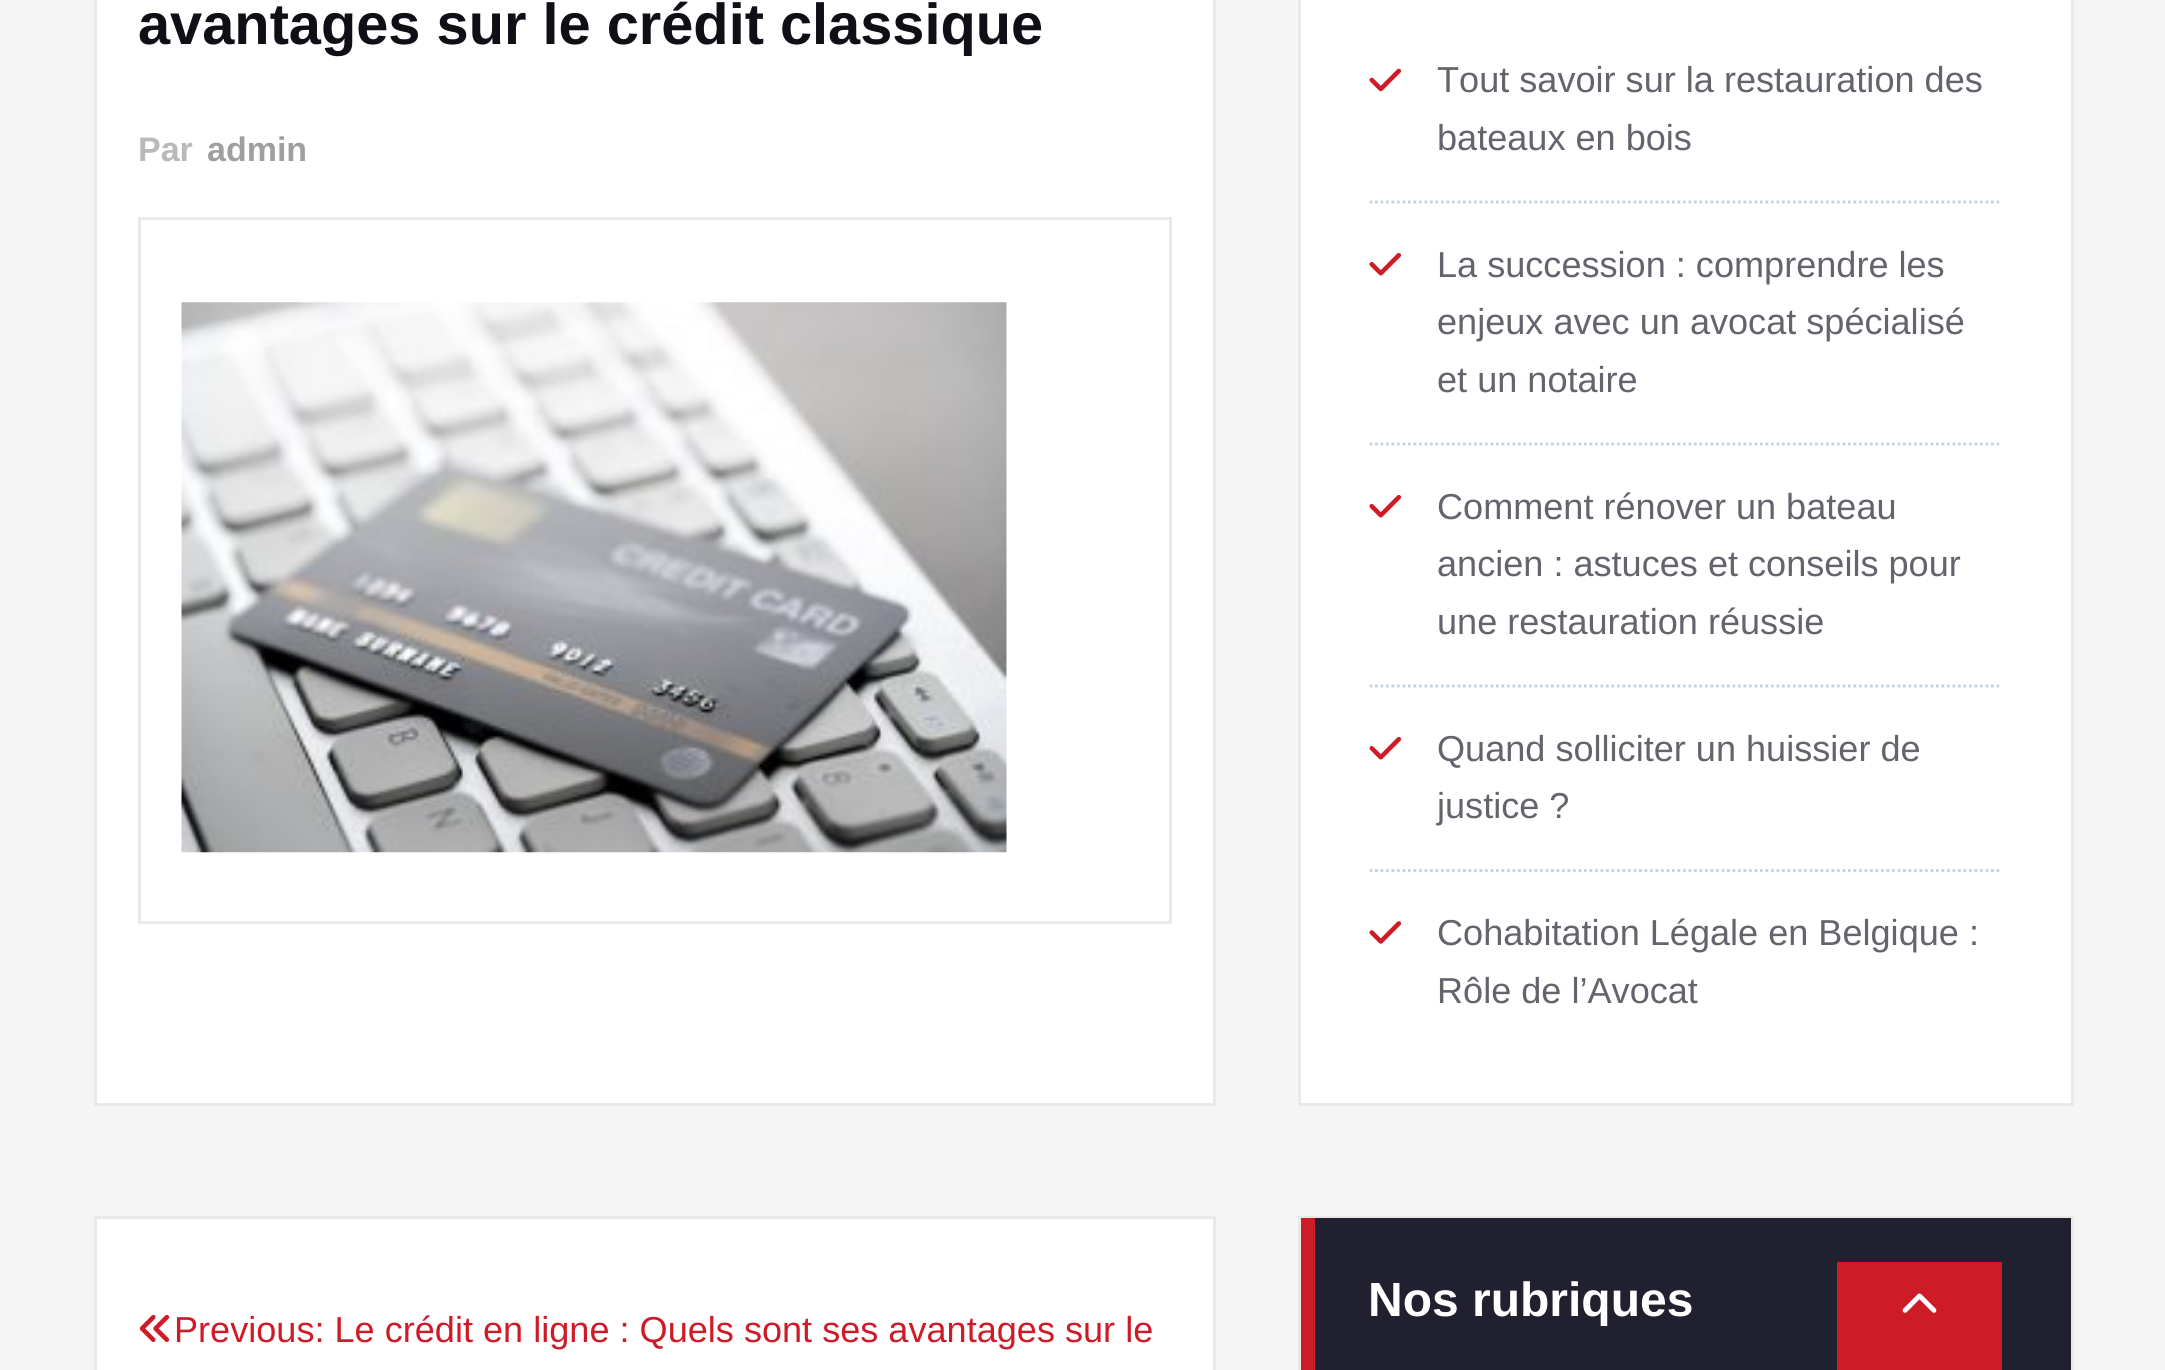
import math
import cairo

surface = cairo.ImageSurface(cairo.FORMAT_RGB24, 2165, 1370)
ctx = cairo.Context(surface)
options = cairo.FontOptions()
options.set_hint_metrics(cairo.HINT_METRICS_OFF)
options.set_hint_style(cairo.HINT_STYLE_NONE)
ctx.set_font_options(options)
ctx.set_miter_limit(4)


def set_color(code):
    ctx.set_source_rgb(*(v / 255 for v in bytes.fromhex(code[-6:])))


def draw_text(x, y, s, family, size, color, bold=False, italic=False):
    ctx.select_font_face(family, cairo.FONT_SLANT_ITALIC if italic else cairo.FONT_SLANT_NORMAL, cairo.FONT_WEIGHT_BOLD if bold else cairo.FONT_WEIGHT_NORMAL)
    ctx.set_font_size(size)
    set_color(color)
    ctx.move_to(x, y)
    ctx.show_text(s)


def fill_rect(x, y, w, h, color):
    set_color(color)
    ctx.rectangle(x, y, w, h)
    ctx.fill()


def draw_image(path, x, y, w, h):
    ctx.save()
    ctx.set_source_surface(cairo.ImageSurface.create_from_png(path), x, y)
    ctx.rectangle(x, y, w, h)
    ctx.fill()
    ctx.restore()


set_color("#f5f5f5")
ctx.paint()
set_color("#ffffff")
ctx.rectangle(95.5, -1.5, 1119, 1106)
ctx.fill_preserve()
set_color("#e9e9e9")
ctx.set_line_width(3)
ctx.stroke()
draw_text(138, 44, "avantages sur le crédit classique", "Liberation Sans", 57.75, "#0f0f16", bold=True)
draw_text(138, 161, "Par", "Liberation Sans", 34, "#b9b9b9", bold=True)
draw_text(207, 161, "admin", "Liberation Sans", 34, "#9f9f9f", bold=True)
ctx.rectangle(139.5, 218.5, 1031, 704)
set_color("#e9e9e9")
ctx.stroke()
draw_image("assets/img1.png", 181, 302, 826, 551)
set_color("#ffffff")
ctx.rectangle(95.5, 1217.5, 1119, 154)
ctx.fill_preserve()
set_color("#e9e9e9")
ctx.stroke()
draw_image("assets/img2.png", 139, 1314, 31, 28)
draw_text(174, 1342, "Previous: Le crédit en ligne : Quels sont ses avantages sur le", "Liberation Sans", 36.1, "#ce1b28")
set_color("#ffffff")
ctx.rectangle(1299.5, -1.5, 773, 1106)
ctx.fill_preserve()
set_color("#e9e9e9")
ctx.stroke()
ctx.new_path()
ctx.move_to(1369.5, 202)
ctx.line_to(2002, 202)
set_color("#c5d1dc")
ctx.set_line_width(2.8)
ctx.set_dash([2.75, 2.75])
ctx.stroke()
draw_image("assets/img3.png", 1369, 68, 33, 24)
draw_text(1437, 92, "Tout savoir sur la restauration des", "Liberation Sans", 36.1, "#64646d")
draw_text(1437, 150, "bateaux en bois", "Liberation Sans", 36.1, "#64646d")
ctx.new_path()
ctx.move_to(1369.5, 444)
ctx.line_to(2002, 444)
set_color("#c5d1dc")
ctx.stroke()
draw_image("assets/img4.png", 1369, 253, 33, 23)
draw_text(1437, 277, "La succession : comprendre les", "Liberation Sans", 36.1, "#64646d")
draw_text(1437, 334, "enjeux avec un avocat spécialisé", "Liberation Sans", 36.1, "#64646d")
draw_text(1437, 392, "et un notaire", "Liberation Sans", 36.1, "#64646d")
ctx.new_path()
ctx.move_to(1369.5, 686)
ctx.line_to(2002, 686)
set_color("#c5d1dc")
ctx.stroke()
draw_image("assets/img4.png", 1369, 495, 33, 23)
draw_text(1437, 519, "Comment rénover un bateau", "Liberation Sans", 36.1, "#64646d")
draw_text(1437, 576, "ancien : astuces et conseils pour", "Liberation Sans", 36.1, "#64646d")
draw_text(1437, 634, "une restauration réussie", "Liberation Sans", 36.1, "#64646d")
ctx.new_path()
ctx.move_to(1369.5, 870.5)
ctx.line_to(2002, 870.5)
set_color("#c5d1dc")
ctx.stroke()
draw_image("assets/img4.png", 1369, 737, 33, 23)
draw_text(1437, 761, "Quand solliciter un huissier de", "Liberation Sans", 36.1, "#64646d")
draw_text(1437, 818, "justice ?", "Liberation Sans", 36.1, "#64646d")
draw_image("assets/img5.png", 1369, 921, 33, 23)
draw_text(1437, 945, "Cohabitation Légale en Belgique :", "Liberation Sans", 36.1, "#64646d")
draw_text(1437, 1003, "Rôle de l’Avocat", "Liberation Sans", 36.1, "#64646d")
ctx.rectangle(1299.5, 1217.5, 773, 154)
set_color("#e9e9e9")
ctx.set_line_width(3)
ctx.set_dash([])
ctx.stroke()
fill_rect(1315, 1218, 756, 152, "#21202e")
fill_rect(1301, 1218, 14, 152, "#ce1b28")
draw_text(1368, 1316, "Nos rubriques", "Liberation Sans", 48, "#ffffff", bold=True)
fill_rect(1837, 1262, 165, 108, "#ce1b28")
draw_image("assets/img6.png", 1902, 1293, 35, 20)
surface.write_to_png("output.png")
